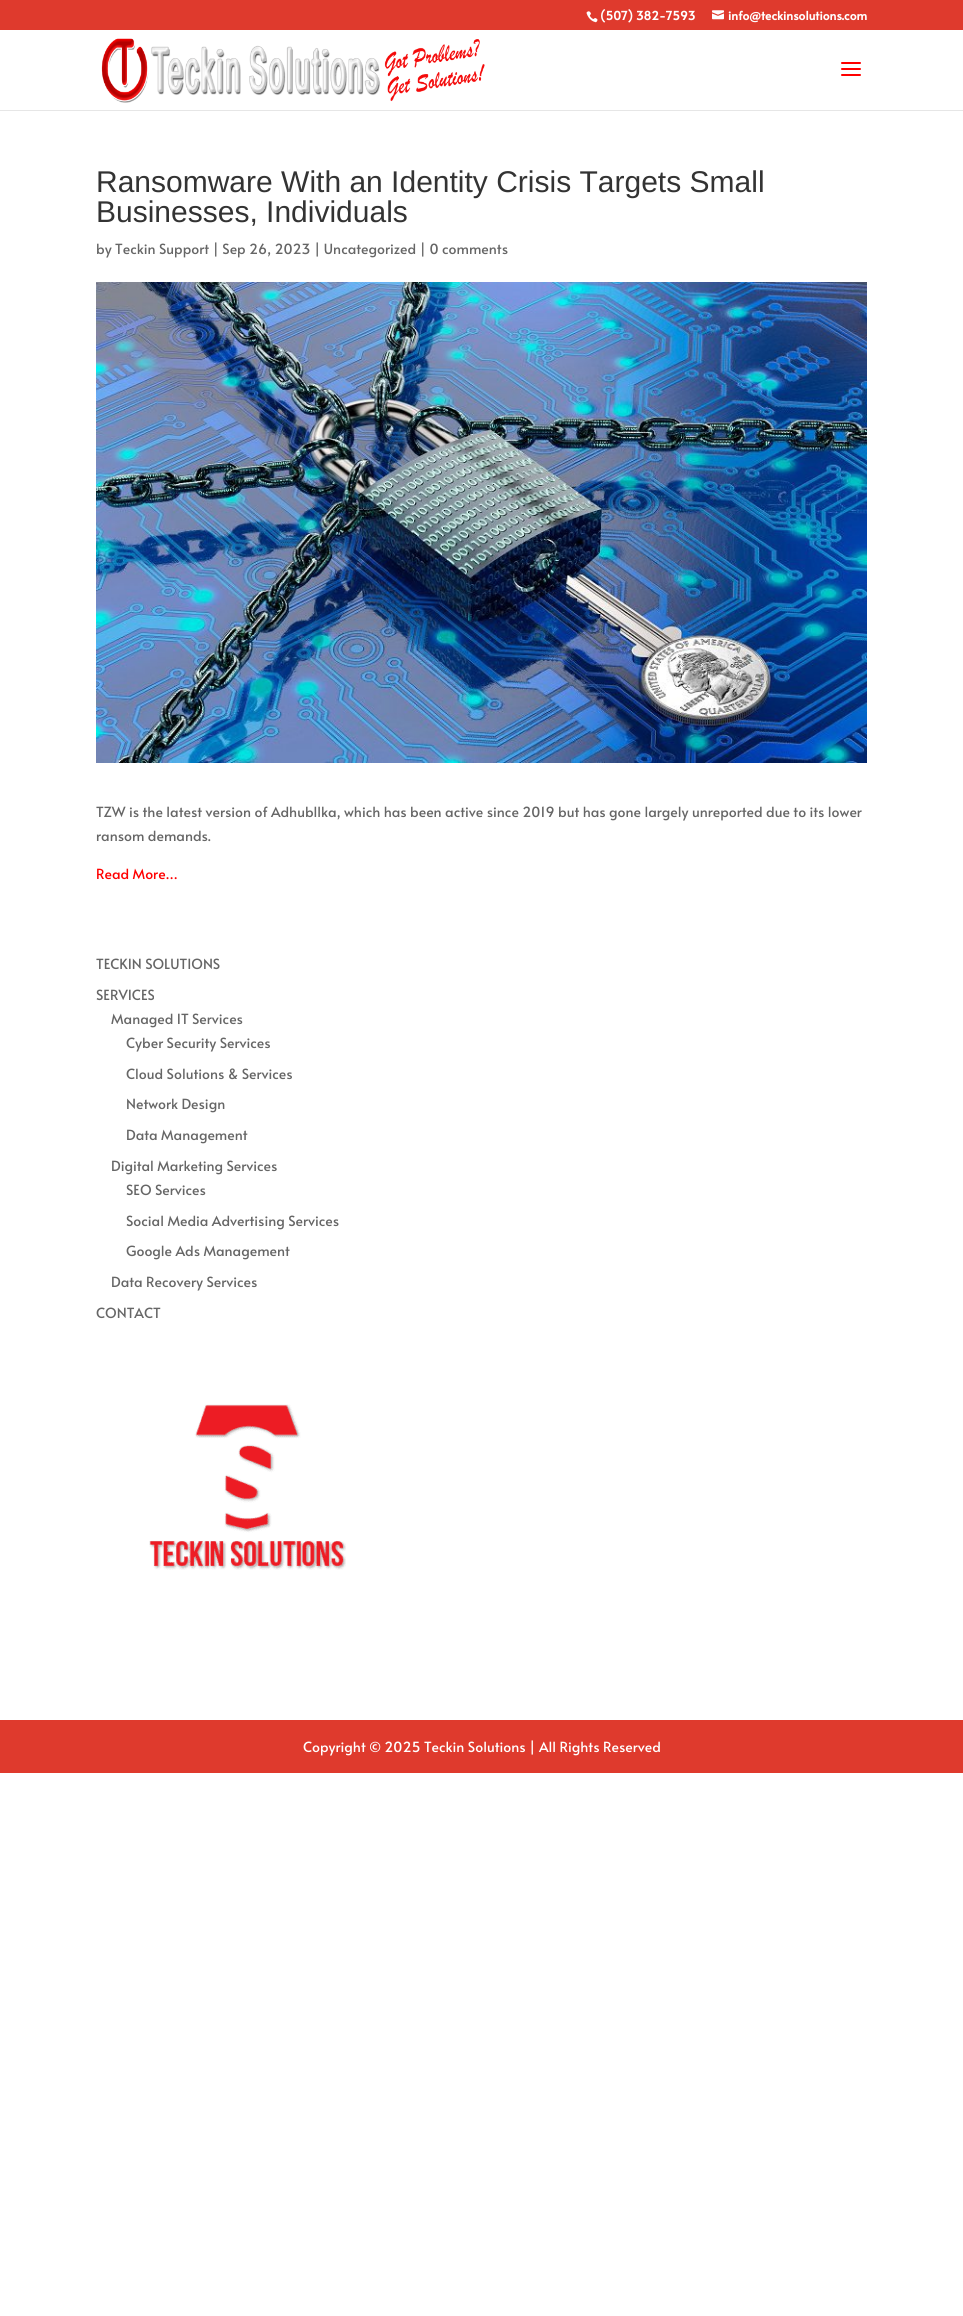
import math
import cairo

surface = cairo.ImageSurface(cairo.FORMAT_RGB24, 963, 2316)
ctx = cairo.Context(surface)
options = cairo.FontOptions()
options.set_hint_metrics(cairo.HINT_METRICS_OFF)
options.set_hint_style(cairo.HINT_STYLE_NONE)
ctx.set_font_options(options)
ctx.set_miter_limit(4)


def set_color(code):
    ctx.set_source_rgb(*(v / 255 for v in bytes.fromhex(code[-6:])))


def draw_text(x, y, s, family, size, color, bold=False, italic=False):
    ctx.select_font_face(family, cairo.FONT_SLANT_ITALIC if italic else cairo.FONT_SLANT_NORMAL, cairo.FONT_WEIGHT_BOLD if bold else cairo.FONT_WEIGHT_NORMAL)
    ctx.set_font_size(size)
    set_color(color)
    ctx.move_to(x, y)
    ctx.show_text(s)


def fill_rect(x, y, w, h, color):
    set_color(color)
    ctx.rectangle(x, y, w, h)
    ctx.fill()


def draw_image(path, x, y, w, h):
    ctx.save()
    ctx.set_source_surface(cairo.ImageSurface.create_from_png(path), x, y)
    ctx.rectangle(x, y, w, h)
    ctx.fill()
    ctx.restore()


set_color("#ffffff")
ctx.paint()
fill_rect(0, 0, 963, 30, "#df3a2d")
draw_image("assets/img1.png", 586, 11, 12, 12)
draw_text(600, 20, "(507) 382-7593", "Alata", 12, "#ffffff", bold=True)
draw_image("assets/img2.png", 712, 10, 12, 10)
draw_text(728, 20, "info@teckinsolutions.com", "Alata", 12, "#ffffff", bold=True)
fill_rect(0, 110, 963, 1, "#e6e6e6")
draw_image("assets/img3.png", 101, 38, 384, 65)
draw_image("assets/img4.png", 841, 62, 20, 14)
draw_text(96, 192, "Ransomware With an Identity Crisis Targets Small", "Liberation Sans", 30, "#333333")
draw_text(96, 222, "Businesses, Individuals", "Liberation Sans", 30, "#333333")
draw_text(96, 254, "by Teckin Support | Sep 26, 2023 | Uncategorized | 0 comments", "Alata", 14, "#666666")
draw_image("assets/img5.png", 96, 282, 771, 481)
draw_text(96, 817, "TZW is the latest version of Adhubllka, which has been active since 2019 but has gone largely unreported due to its lower", "Alata", 14, "#666666")
draw_text(96, 841, "ransom demands.", "Alata", 14, "#666666")
draw_text(96, 879, "Read More…", "Alata", 14, "#ff0000")
draw_text(96, 969, "TECKIN SOLUTIONS", "Alata", 14, "#666666")
draw_text(96, 1000, "SERVICES", "Alata", 14, "#666666")
draw_text(111, 1024, "Managed IT Services", "Alata", 14, "#666666")
draw_text(126, 1048, "Cyber Security Services", "Alata", 14, "#666666")
draw_text(126, 1079, "Cloud Solutions & Services", "Alata", 14, "#666666")
draw_text(126, 1109, "Network Design", "Alata", 14, "#666666")
draw_text(126, 1140, "Data Management", "Alata", 14, "#666666")
draw_text(111, 1171, "Digital Marketing Services", "Alata", 14, "#666666")
draw_text(126, 1195, "SEO Services", "Alata", 14, "#666666")
draw_text(126, 1226, "Social Media Advertising Services", "Alata", 14, "#666666")
draw_text(126, 1256, "Google Ads Management", "Alata", 14, "#666666")
draw_text(111, 1287, "Data Recovery Services", "Alata", 14, "#666666")
draw_text(96, 1318, "CONTACT", "Alata", 14, "#666666")
draw_image("assets/img6.png", 149, 1404, 197, 166)
fill_rect(0, 1720, 963, 53, "#df3a2d")
draw_text(303, 1752, "Copyright © 2025 Teckin Solutions | All Rights Reserved", "Alata", 14, "#ffffff")
surface.write_to_png("output.png")
